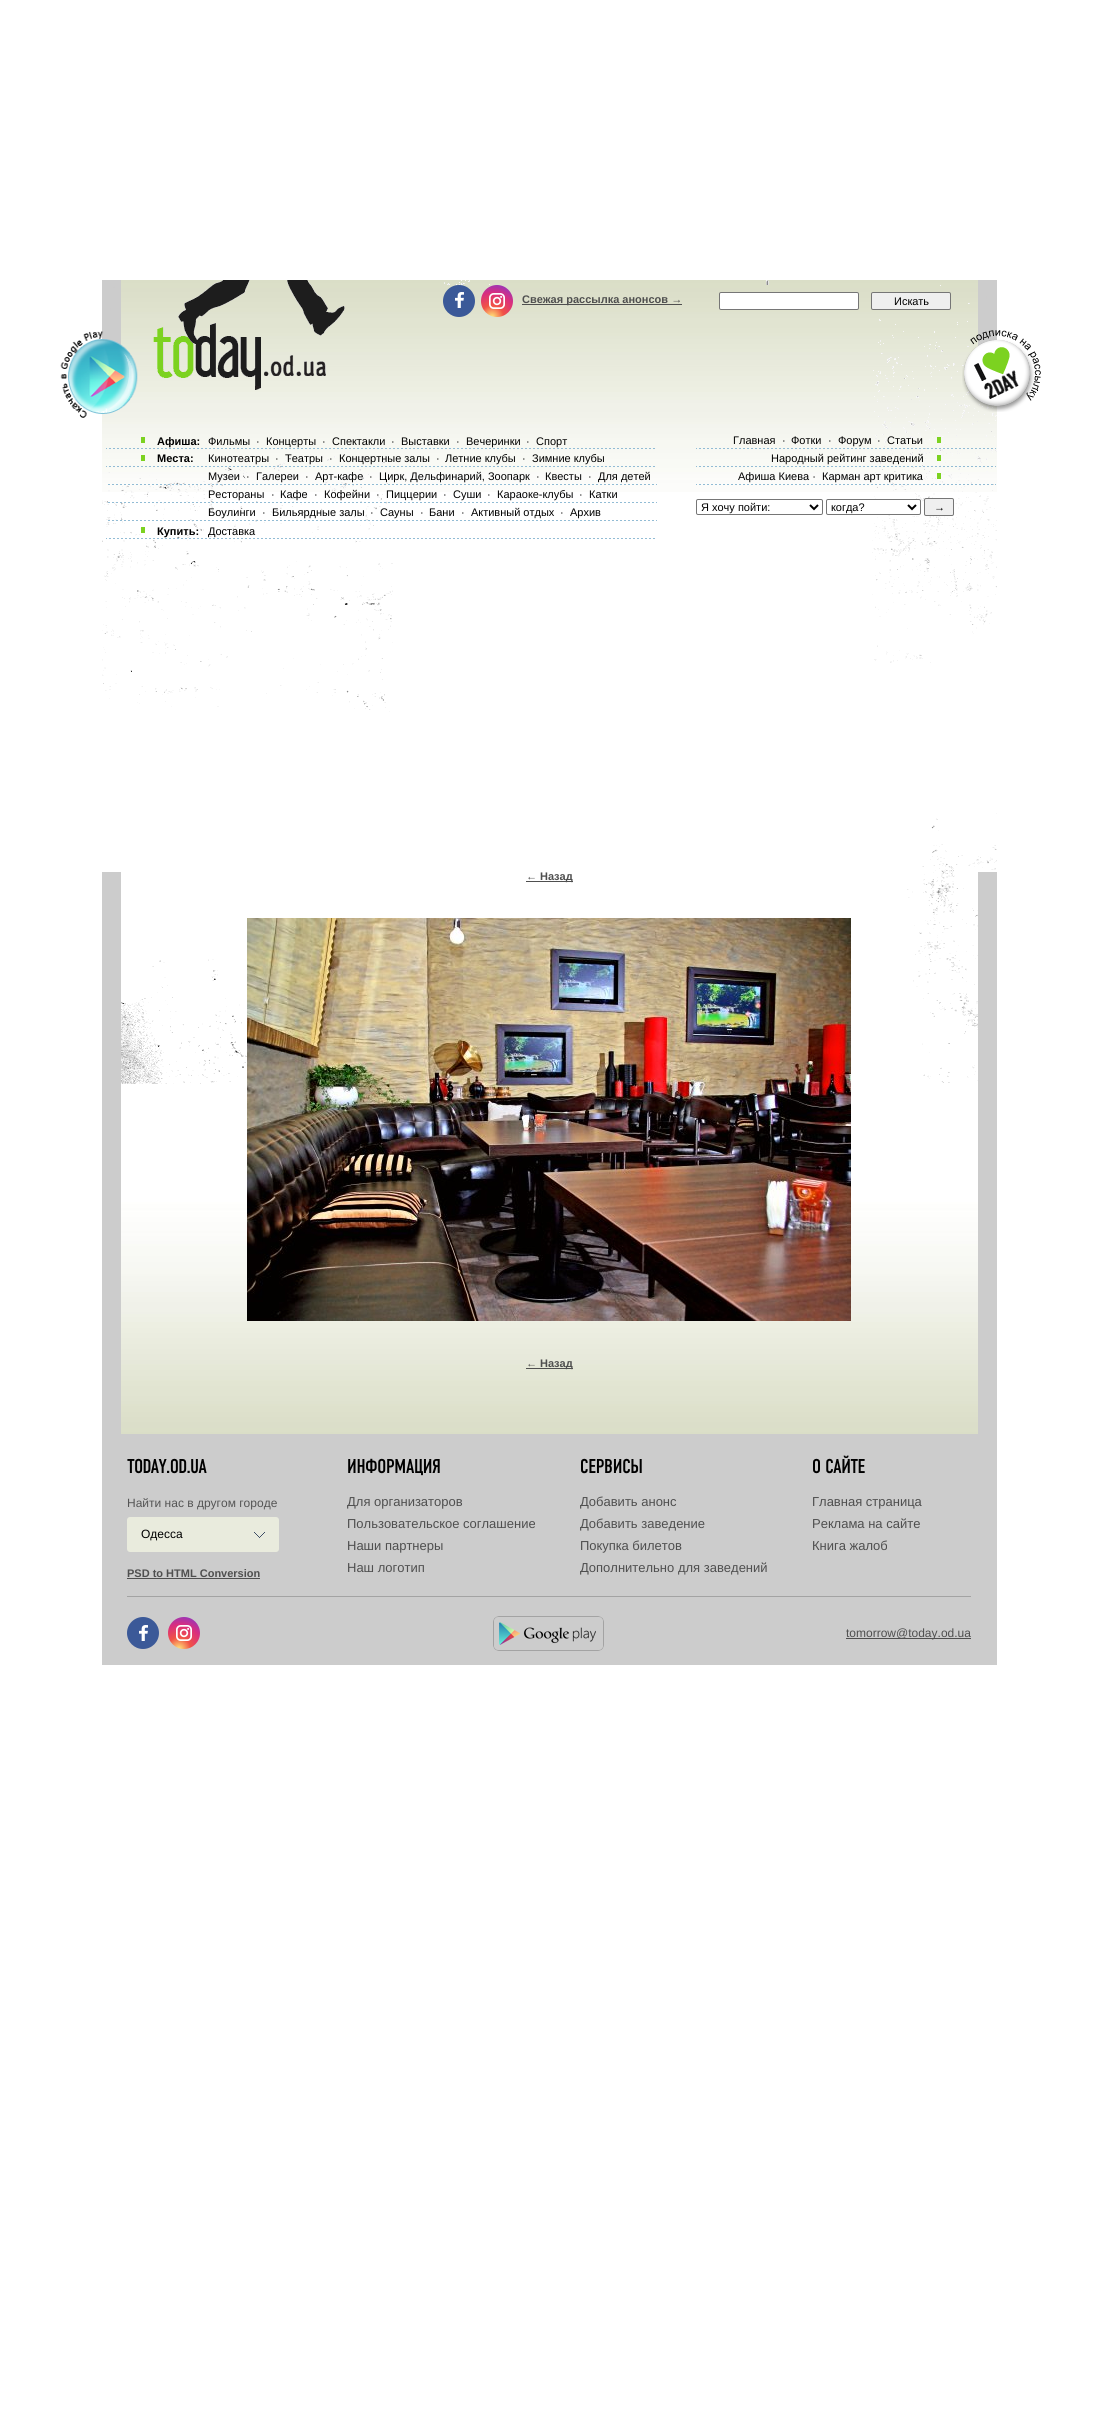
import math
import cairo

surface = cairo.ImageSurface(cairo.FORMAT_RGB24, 1099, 2427)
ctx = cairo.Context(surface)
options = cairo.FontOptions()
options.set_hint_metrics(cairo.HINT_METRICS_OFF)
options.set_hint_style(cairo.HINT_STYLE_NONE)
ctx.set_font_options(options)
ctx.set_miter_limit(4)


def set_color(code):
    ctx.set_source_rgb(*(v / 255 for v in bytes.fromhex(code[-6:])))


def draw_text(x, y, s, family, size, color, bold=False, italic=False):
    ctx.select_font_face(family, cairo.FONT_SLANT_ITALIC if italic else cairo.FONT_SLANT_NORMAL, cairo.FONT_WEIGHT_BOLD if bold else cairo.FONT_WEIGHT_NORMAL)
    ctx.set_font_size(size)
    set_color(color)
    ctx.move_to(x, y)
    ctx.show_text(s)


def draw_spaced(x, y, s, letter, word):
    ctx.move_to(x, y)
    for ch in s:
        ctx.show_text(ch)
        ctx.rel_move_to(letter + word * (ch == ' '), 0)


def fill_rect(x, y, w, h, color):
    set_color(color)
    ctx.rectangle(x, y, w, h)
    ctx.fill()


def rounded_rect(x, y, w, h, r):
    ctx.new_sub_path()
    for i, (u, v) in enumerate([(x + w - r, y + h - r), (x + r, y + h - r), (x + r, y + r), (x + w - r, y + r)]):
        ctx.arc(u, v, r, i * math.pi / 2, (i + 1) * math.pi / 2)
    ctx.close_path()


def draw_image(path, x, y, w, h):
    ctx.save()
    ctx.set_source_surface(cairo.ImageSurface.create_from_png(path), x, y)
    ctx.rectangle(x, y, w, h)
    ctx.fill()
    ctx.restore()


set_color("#ffffff")
ctx.paint()
draw_image("assets/img14.png", 102, 280, 895, 212)
draw_image("assets/img15.png", 102, 280, 895, 804)
draw_image("assets/img1.png", 60, 331, 78, 87)
set_color("#3b5998")
ctx.arc(459, 301, 16, 0, 2 * math.pi)
ctx.fill()
draw_image("assets/img2.png", 455, 292, 9, 16)
gradient = cairo.RadialGradient(492, 317, 0, 492, 317, 39)
gradient.add_color_stop_rgba(0.04, 0.996, 0.827, 0.451, 1)
gradient.add_color_stop_rgba(0.3, 0.945, 0.322, 0.271, 1)
gradient.add_color_stop_rgba(0.62, 0.851, 0.18, 0.498, 1)
gradient.add_color_stop_rgba(0.85, 0.608, 0.212, 0.718, 1)
gradient.add_color_stop_rgba(1, 0.318, 0.369, 0.812, 1)
ctx.set_source(gradient)
ctx.arc(497, 301, 16, 0, 2 * math.pi)
ctx.fill()
draw_image("assets/img3.png", 489, 293, 16, 16)
fill_rect(522, 304, 160, 1, "#4f4f4f")
draw_text(522, 303, "Свежая рассылка анонсов →", "Liberation Sans", 11, "#4f4f4f", bold=True)
set_color("#ffffff")
rounded_rect(719.5, 292.5, 139, 17, 1.5)
ctx.fill_preserve()
set_color("#767676")
ctx.set_line_width(1)
ctx.stroke()
set_color("#efefef")
rounded_rect(871.5, 292.5, 79, 17, 1.5)
ctx.fill_preserve()
set_color("#767676")
ctx.stroke()
draw_text(894, 305, "Искать", "Liberation Sans", 11, "#000000")
draw_image("assets/img4.png", 106, 437, 549, 12)
draw_text(157, 445, "Афиша:", "Liberation Sans", 11, "#000000", bold=True)
draw_text(208, 445, "Фильмы", "Liberation Sans", 11, "#000000")
draw_text(256, 445, "·", "Liberation Sans", 11, "#000000")
draw_text(266, 445, "Концерты", "Liberation Sans", 11, "#000000")
draw_text(322, 445, "·", "Liberation Sans", 11, "#000000")
draw_text(332, 445, "Спектакли", "Liberation Sans", 11, "#000000")
draw_text(391, 445, "·", "Liberation Sans", 11, "#000000")
draw_text(401, 445, "Выставки", "Liberation Sans", 11, "#000000")
draw_text(456, 445, "·", "Liberation Sans", 11, "#000000")
draw_text(466, 445, "Вечеринки", "Liberation Sans", 11, "#000000")
draw_text(526, 445, "·", "Liberation Sans", 11, "#000000")
draw_text(536, 445, "Спорт", "Liberation Sans", 11, "#000000")
draw_image("assets/img5.png", 106, 455, 549, 12)
draw_text(157, 462, "Места:", "Liberation Sans", 11, "#000000", bold=True)
draw_text(208, 462, "Кинотеатры", "Liberation Sans", 11, "#000000")
draw_text(275, 462, "·", "Liberation Sans", 11, "#000000")
draw_text(285, 462, "Театры", "Liberation Sans", 11, "#000000")
draw_text(329, 462, "·", "Liberation Sans", 11, "#000000")
draw_text(339, 462, "Концертные залы", "Liberation Sans", 11, "#000000")
draw_text(436, 462, "·", "Liberation Sans", 11, "#000000")
draw_text(445, 462, "Летние клубы", "Liberation Sans", 11, "#000000")
draw_text(522, 462, "·", "Liberation Sans", 11, "#000000")
draw_text(532, 462, "Зимние клубы", "Liberation Sans", 11, "#000000")
draw_image("assets/img6.png", 108, 484, 549, 1)
draw_text(208, 480, "Музеи", "Liberation Sans", 11, "#000000")
draw_text(246, 480, "·", "Liberation Sans", 11, "#000000")
draw_text(256, 480, "Галереи", "Liberation Sans", 11, "#000000")
draw_text(305, 480, "·", "Liberation Sans", 11, "#000000")
draw_text(315, 480, "Арт-кафе", "Liberation Sans", 11, "#000000")
draw_text(369, 480, "·", "Liberation Sans", 11, "#000000")
draw_text(379, 480, "Цирк, Дельфинарий, Зоопарк", "Liberation Sans", 11, "#000000")
draw_text(536, 480, "·", "Liberation Sans", 11, "#000000")
draw_text(545, 480, "Квесты", "Liberation Sans", 11, "#000000")
draw_text(588, 480, "·", "Liberation Sans", 11, "#000000")
draw_text(598, 480, "Для детей", "Liberation Sans", 11, "#000000")
draw_image("assets/img7.png", 108, 502, 549, 1)
draw_text(208, 498, "Рестораны", "Liberation Sans", 11, "#000000")
draw_text(271, 498, "·", "Liberation Sans", 11, "#000000")
draw_text(280, 498, "Кафе", "Liberation Sans", 11, "#000000")
draw_text(314, 498, "·", "Liberation Sans", 11, "#000000")
draw_text(324, 498, "Кофейни", "Liberation Sans", 11, "#000000")
draw_text(376, 498, "·", "Liberation Sans", 11, "#000000")
draw_text(386, 498, "Пиццерии", "Liberation Sans", 11, "#000000")
draw_text(443, 498, "·", "Liberation Sans", 11, "#000000")
draw_text(453, 498, "Суши", "Liberation Sans", 11, "#000000")
draw_text(487, 498, "·", "Liberation Sans", 11, "#000000")
draw_text(497, 498, "Караоке-клубы", "Liberation Sans", 11, "#000000")
draw_text(579, 498, "·", "Liberation Sans", 11, "#000000")
draw_text(589, 498, "Катки", "Liberation Sans", 11, "#000000")
draw_image("assets/img8.png", 108, 520, 549, 1)
draw_text(208, 516, "Боулинги", "Liberation Sans", 11, "#000000")
draw_text(262, 516, "·", "Liberation Sans", 11, "#000000")
draw_text(272, 516, "Бильярдные залы", "Liberation Sans", 11, "#000000")
draw_text(370, 516, "·", "Liberation Sans", 11, "#000000")
draw_text(380, 516, "Сауны", "Liberation Sans", 11, "#000000")
draw_text(420, 516, "·", "Liberation Sans", 11, "#000000")
draw_text(429, 516, "Бани", "Liberation Sans", 11, "#000000")
draw_text(461, 516, "·", "Liberation Sans", 11, "#000000")
draw_text(471, 516, "Активный отдых", "Liberation Sans", 11, "#000000")
draw_text(560, 516, "·", "Liberation Sans", 11, "#000000")
draw_text(570, 516, "Архив", "Liberation Sans", 11, "#000000")
draw_image("assets/img9.png", 106, 527, 549, 12)
draw_text(157, 535, "Купить:", "Liberation Sans", 11, "#000000", bold=True)
draw_text(208, 535, "Доставка", "Liberation Sans", 11, "#000000")
draw_image("assets/img10.png", 696, 437, 300, 12)
draw_text(733, 444, "Главная", "Liberation Sans", 11, "#000000")
draw_text(782, 444, "·", "Liberation Sans", 11, "#000000")
draw_text(791, 444, "Фотки", "Liberation Sans", 11, "#000000")
draw_text(828, 444, "·", "Liberation Sans", 11, "#000000")
draw_text(838, 444, "Форум", "Liberation Sans", 11, "#000000")
draw_text(877, 444, "·", "Liberation Sans", 11, "#000000")
draw_text(887, 444, "Статьи", "Liberation Sans", 11, "#000000")
draw_image("assets/img11.png", 696, 455, 300, 12)
draw_text(771, 462, "Народный рейтинг заведений", "Liberation Sans", 11, "#000000")
draw_image("assets/img12.png", 696, 473, 300, 12)
draw_text(738, 480, "Афиша Киева ·", "Liberation Sans", 11, "#000000")
draw_text(822, 480, "Карман арт критика", "Liberation Sans", 11, "#000000")
rounded_rect(696.5, 499.5, 126, 15, 1.5)
set_color("#767676")
ctx.stroke()
ctx.new_path()
ctx.move_to(810, 505)
ctx.line_to(814, 509)
ctx.line_to(818, 505)
set_color("#000000")
ctx.set_line_width(2)
ctx.stroke()
draw_text(701, 511, "Я хочу пойти:", "Liberation Sans", 11, "#000000")
set_color("#ffffff")
rounded_rect(826.5, 499.5, 94, 15, 1.5)
ctx.fill_preserve()
set_color("#767676")
ctx.set_line_width(1)
ctx.stroke()
ctx.new_path()
ctx.move_to(908, 505)
ctx.line_to(912, 509)
ctx.line_to(916, 505)
set_color("#000000")
ctx.set_line_width(2)
ctx.stroke()
draw_text(831, 511, "когда?", "Liberation Sans", 11, "#000000")
set_color("#efefef")
rounded_rect(924.5, 498.5, 29, 17, 1.5)
ctx.fill_preserve()
set_color("#767676")
ctx.set_line_width(1)
ctx.stroke()
draw_text(934, 511, "→", "Liberation Sans", 11, "#000000")
draw_image("assets/img13.png", 962, 330, 79, 82)
draw_image("assets/img16.png", 121, 1084, 857, 350)
fill_rect(102, 872, 19, 562, "#cccccc")
fill_rect(526, 881, 47, 1, "#4f4f4f")
draw_text(526, 880, "← Назад", "Liberation Sans", 11, "#4f4f4f", bold=True)
draw_image("assets/img17.png", 247, 918, 604, 403)
fill_rect(526, 1368, 47, 1, "#4f4f4f")
draw_text(526, 1367, "← Назад", "Liberation Sans", 11, "#4f4f4f", bold=True)
fill_rect(978, 872, 19, 562, "#cccccc")
fill_rect(978, 870, 19, 1, "#ffffff")
fill_rect(102, 1434, 895, 231, "#cccccc")
ctx.select_font_face("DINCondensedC")
ctx.set_font_size(20)
set_color("#000000")
draw_spaced(127, 1473, "TODAY.OD.UA", -0.75, 0)
draw_text(127, 1507, "Найти нас в другом городе", "Liberation Sans", 12, "#555555")
set_color("#e9ebdd")
rounded_rect(127, 1517, 152, 35, 3)
ctx.fill()
draw_text(141, 1538, "Одесса", "Liberation Sans", 12, "#000000")
draw_image("assets/img18.png", 254, 1532, 11, 6)
draw_text(127, 1577, "PSD to HTML Conversion", "Liberation Sans", 11, "#4f4f4f", bold=True)
fill_rect(127, 1578, 133, 1, "#4f4f4f")
ctx.select_font_face("DINCondensedC")
ctx.set_font_size(20)
set_color("#000000")
draw_spaced(347, 1473, "ИНФОРМАЦИЯ", -0.25, 0)
draw_text(347, 1506, "Для организаторов", "Liberation Sans", 13, "#4f4f4f")
draw_text(347, 1528, "Пользовательское соглашение", "Liberation Sans", 13, "#4f4f4f")
draw_text(347, 1550, "Наши партнеры", "Liberation Sans", 13, "#4f4f4f")
draw_text(347, 1572, "Наш логотип", "Liberation Sans", 13, "#4f4f4f")
ctx.select_font_face("DINCondensedC")
ctx.set_font_size(20)
set_color("#000000")
draw_spaced(580, 1473, "СЕРВИСЫ", -0.25, 0)
draw_text(580, 1506, "Добавить анонс", "Liberation Sans", 13, "#4f4f4f")
draw_text(580, 1528, "Добавить заведение", "Liberation Sans", 13, "#4f4f4f")
draw_text(580, 1550, "Покупка билетов", "Liberation Sans", 13, "#4f4f4f")
draw_text(580, 1572, "Дополнительно для заведений", "Liberation Sans", 13, "#4f4f4f")
ctx.select_font_face("DINCondensedC")
ctx.set_font_size(20)
set_color("#000000")
draw_spaced(812, 1473, "О САЙТЕ", -0.25, 0)
draw_text(812, 1506, "Главная страница", "Liberation Sans", 13, "#4f4f4f")
draw_text(812, 1528, "Реклама на сайте", "Liberation Sans", 13, "#4f4f4f")
draw_text(812, 1550, "Книга жалоб", "Liberation Sans", 13, "#4f4f4f")
fill_rect(127, 1596, 844, 1, "#a3a3a3")
set_color("#3b5998")
ctx.new_path()
ctx.arc(143, 1633, 16, 0, 2 * math.pi)
ctx.fill()
draw_image("assets/img2.png", 139, 1625, 9, 16)
gradient = cairo.RadialGradient(179, 1649, 0, 179, 1649, 39)
gradient.add_color_stop_rgba(0.04, 0.996, 0.827, 0.451, 1)
gradient.add_color_stop_rgba(0.3, 0.945, 0.322, 0.271, 1)
gradient.add_color_stop_rgba(0.62, 0.851, 0.18, 0.498, 1)
gradient.add_color_stop_rgba(0.85, 0.608, 0.212, 0.718, 1)
gradient.add_color_stop_rgba(1, 0.318, 0.369, 0.812, 1)
ctx.set_source(gradient)
ctx.arc(184, 1633, 16, 0, 2 * math.pi)
ctx.fill()
draw_image("assets/img3.png", 176, 1625, 16, 16)
draw_image("assets/img19.png", 493, 1616, 111, 35)
fill_rect(846, 1638, 125, 1, "#4f4f4f")
draw_text(846, 1637, "tomorrow@today.od.ua", "Liberation Sans", 12, "#4f4f4f")
surface.write_to_png("output.png")
